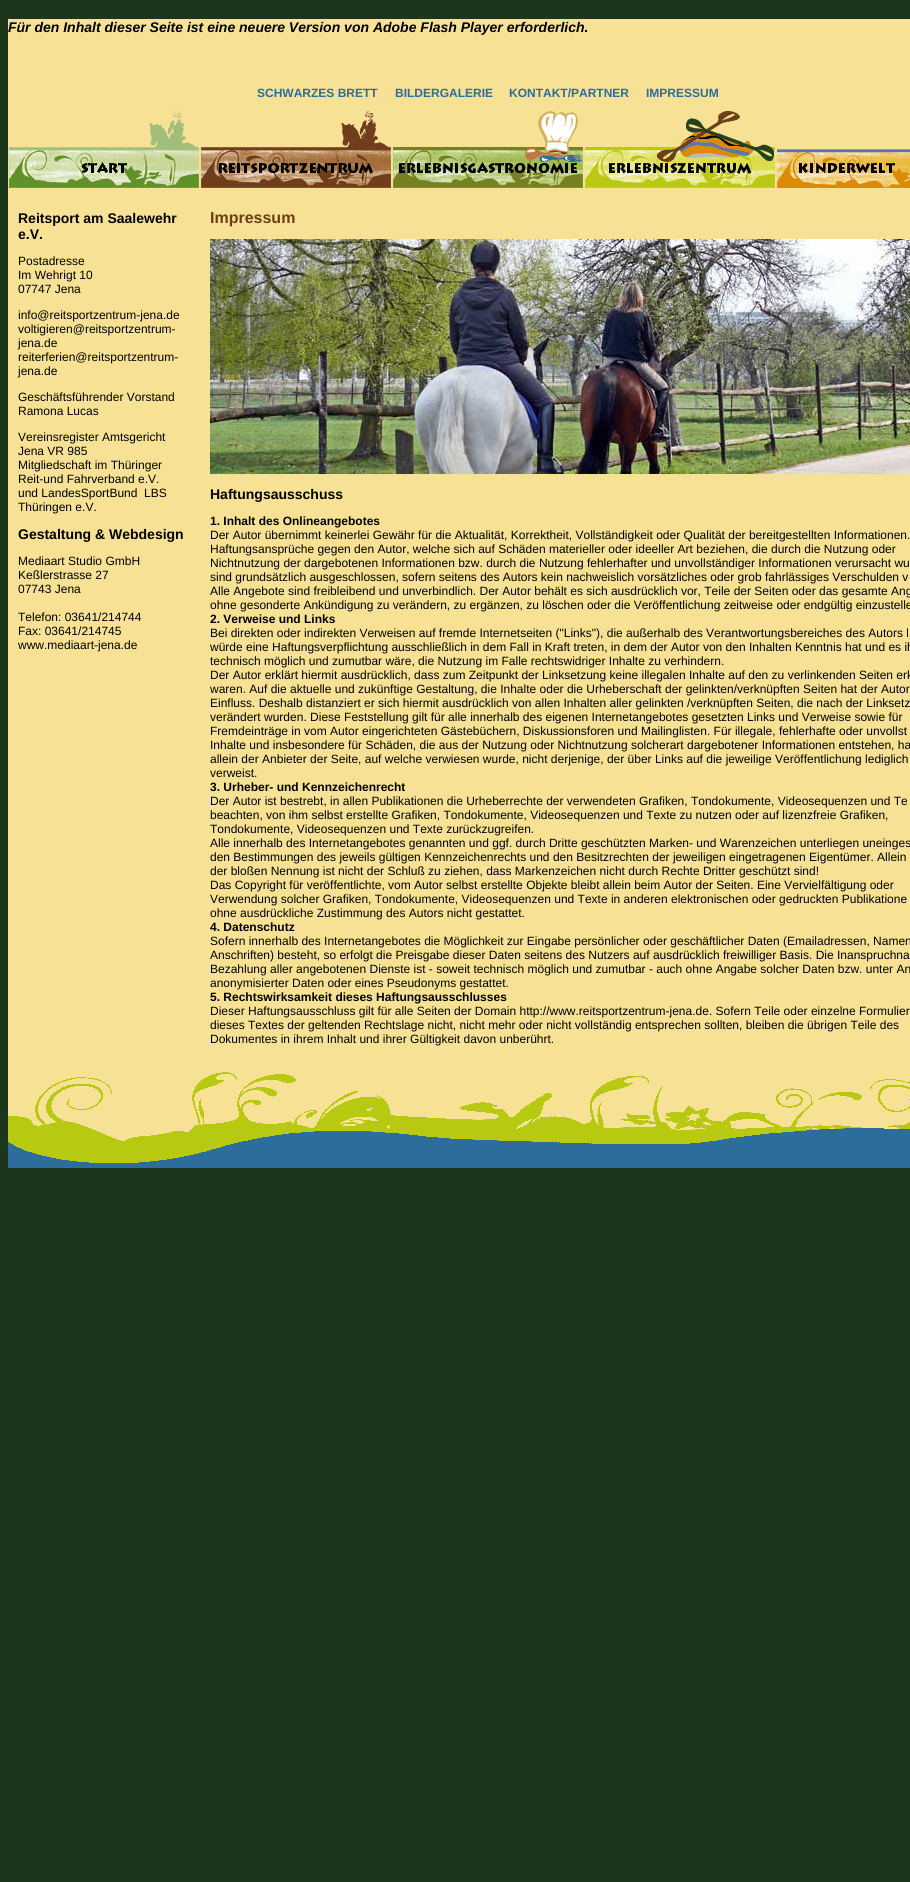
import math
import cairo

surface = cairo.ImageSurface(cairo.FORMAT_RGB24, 910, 1882)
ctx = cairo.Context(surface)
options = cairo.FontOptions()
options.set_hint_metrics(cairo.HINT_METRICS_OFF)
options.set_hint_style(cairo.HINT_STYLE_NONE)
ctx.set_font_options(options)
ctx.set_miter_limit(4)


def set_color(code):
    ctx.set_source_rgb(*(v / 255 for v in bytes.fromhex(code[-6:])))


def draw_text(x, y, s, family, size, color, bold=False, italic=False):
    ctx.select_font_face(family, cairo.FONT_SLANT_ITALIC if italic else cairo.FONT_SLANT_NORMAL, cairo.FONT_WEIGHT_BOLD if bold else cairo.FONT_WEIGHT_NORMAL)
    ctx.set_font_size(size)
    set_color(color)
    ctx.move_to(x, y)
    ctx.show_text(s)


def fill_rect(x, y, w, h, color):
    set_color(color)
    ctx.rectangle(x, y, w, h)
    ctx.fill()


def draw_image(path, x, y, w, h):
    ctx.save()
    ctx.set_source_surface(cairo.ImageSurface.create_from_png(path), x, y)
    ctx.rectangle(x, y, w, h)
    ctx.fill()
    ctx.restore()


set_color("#1c361c")
ctx.paint()
fill_rect(8, 19, 902, 1053, "#f7e195")
draw_text(8, 32, "Für den Inhalt dieser Seite ist eine neuere Version von Adobe Flash Player erforderlich.", "Liberation Sans", 14, "#000000", bold=True, italic=True)
draw_text(257, 97, "SCHWARZES BRETT", "Liberation Sans", 12, "#2c6d9b", bold=True)
draw_text(395, 97, "BILDERGALERIE", "Liberation Sans", 12, "#2c6d9b", bold=True)
draw_text(509, 97, "KONTAKT/PARTNER", "Liberation Sans", 12, "#2c6d9b", bold=True)
draw_text(646, 97, "IMPRESSUM", "Liberation Sans", 12, "#2c6d9b", bold=True)
draw_image("assets/img1.png", 9, 111, 190, 77)
draw_image("assets/img2.png", 201, 111, 190, 77)
draw_image("assets/img3.png", 393, 111, 190, 77)
draw_image("assets/img4.png", 585, 111, 190, 77)
draw_image("assets/img5.png", 777, 149, 133, 39)
draw_text(18, 223, "Reitsport am Saalewehr", "Liberation Sans", 14, "#000000", bold=True)
draw_text(18, 239, "e.V.", "Liberation Sans", 14, "#000000", bold=True)
draw_text(18, 265, "Postadresse", "Liberation Sans", 12, "#000000")
draw_text(18, 279, "Im Wehrigt 10", "Liberation Sans", 12, "#000000")
draw_text(18, 293, "07747 Jena", "Liberation Sans", 12, "#000000")
draw_text(18, 319, "info@reitsportzentrum-jena.de", "Liberation Sans", 12, "#000000")
draw_text(18, 333, "voltigieren@reitsportzentrum-", "Liberation Sans", 12, "#000000")
draw_text(18, 347, "jena.de", "Liberation Sans", 12, "#000000")
draw_text(18, 361, "reiterferien@reitsportzentrum-", "Liberation Sans", 12, "#000000")
draw_text(18, 375, "jena.de", "Liberation Sans", 12, "#000000")
draw_text(18, 401, "Geschäftsführender Vorstand", "Liberation Sans", 12, "#000000")
draw_text(18, 415, "Ramona Lucas", "Liberation Sans", 12, "#000000")
draw_text(18, 441, "Vereinsregister Amtsgericht", "Liberation Sans", 12, "#000000")
draw_text(18, 455, "Jena VR 985", "Liberation Sans", 12, "#000000")
draw_text(18, 469, "Mitgliedschaft im Thüringer", "Liberation Sans", 12, "#000000")
draw_text(18, 483, "Reit-und Fahrverband e.V.", "Liberation Sans", 12, "#000000")
draw_text(18, 497, "und LandesSportBund  LBS", "Liberation Sans", 12, "#000000")
draw_text(18, 511, "Thüringen e.V.", "Liberation Sans", 12, "#000000")
draw_text(18, 539, "Gestaltung & Webdesign", "Liberation Sans", 14, "#000000", bold=True)
draw_text(18, 565, "Mediaart Studio GmbH", "Liberation Sans", 12, "#000000")
draw_text(18, 579, "Keßlerstrasse 27", "Liberation Sans", 12, "#000000")
draw_text(18, 593, "07743 Jena", "Liberation Sans", 12, "#000000")
draw_text(18, 621, "Telefon: 03641/214744", "Liberation Sans", 12, "#000000")
draw_text(18, 635, "Fax: 03641/214745", "Liberation Sans", 12, "#000000")
draw_text(18, 649, "www.mediaart-jena.de", "Liberation Sans", 12, "#000000")
draw_text(210, 223, "Impressum", "Liberation Sans", 16, "#6b3e16", bold=True)
draw_image("assets/img6.png", 210, 239, 700, 235)
draw_text(210, 499, "Haftungsausschuss", "Liberation Sans", 14, "#000000", bold=True)
draw_text(210, 525, "1. Inhalt des Onlineangebotes", "Liberation Sans", 12, "#000000", bold=True)
draw_text(210, 539, "Der Autor übernimmt keinerlei Gewähr für die Aktualität, Korrektheit, Vollständigkeit oder Qualität der bereitgestellten Informationen.", "Liberation Sans", 12, "#000000")
draw_text(210, 553, "Haftungsansprüche gegen den Autor, welche sich auf Schäden materieller oder ideeller Art beziehen, die durch die Nutzung oder", "Liberation Sans", 12, "#000000")
draw_text(210, 567, "Nichtnutzung der dargebotenen Informationen bzw. durch die Nutzung fehlerhafter und unvollständiger Informationen verursacht wu", "Liberation Sans", 12, "#000000")
draw_text(210, 581, "sind grundsätzlich ausgeschlossen, sofern seitens des Autors kein nachweislich vorsätzliches oder grob fahrlässiges Verschulden v", "Liberation Sans", 12, "#000000")
draw_text(210, 595, "Alle Angebote sind freibleibend und unverbindlich. Der Autor behält es sich ausdrücklich vor, Teile der Seiten oder das gesamte Ang", "Liberation Sans", 12, "#000000")
draw_text(210, 609, "ohne gesonderte Ankündigung zu verändern, zu ergänzen, zu löschen oder die Veröffentlichung zeitweise oder endgültig einzustelle", "Liberation Sans", 12, "#000000")
draw_text(210, 623, "2. Verweise und Links", "Liberation Sans", 12, "#000000", bold=True)
draw_text(210, 637, "Bei direkten oder indirekten Verweisen auf fremde Internetseiten (\"Links\"), die außerhalb des Verantwortungsbereiches des Autors l", "Liberation Sans", 12, "#000000")
draw_text(210, 651, "würde eine Haftungsverpflichtung ausschließlich in dem Fall in Kraft treten, in dem der Autor von den Inhalten Kenntnis hat und es ih", "Liberation Sans", 12, "#000000")
draw_text(210, 665, "technisch möglich und zumutbar wäre, die Nutzung im Falle rechtswidriger Inhalte zu verhindern.", "Liberation Sans", 12, "#000000")
draw_text(210, 679, "Der Autor erklärt hiermit ausdrücklich, dass zum Zeitpunkt der Linksetzung keine illegalen Inhalte auf den zu verlinkenden Seiten erk", "Liberation Sans", 12, "#000000")
draw_text(210, 693, "waren. Auf die aktuelle und zukünftige Gestaltung, die Inhalte oder die Urheberschaft der gelinkten/verknüpften Seiten hat der Autor", "Liberation Sans", 12, "#000000")
draw_text(210, 707, "Einfluss. Deshalb distanziert er sich hiermit ausdrücklich von allen Inhalten aller gelinkten /verknüpften Seiten, die nach der Linksetz", "Liberation Sans", 12, "#000000")
draw_text(210, 721, "verändert wurden. Diese Feststellung gilt für alle innerhalb des eigenen Internetangebotes gesetzten Links und Verweise sowie für", "Liberation Sans", 12, "#000000")
draw_text(210, 735, "Fremdeinträge in vom Autor eingerichteten Gästebüchern, Diskussionsforen und Mailinglisten. Für illegale, fehlerhafte oder unvollst", "Liberation Sans", 12, "#000000")
draw_text(210, 749, "Inhalte und insbesondere für Schäden, die aus der Nutzung oder Nichtnutzung solcherart dargebotener Informationen entstehen, ha", "Liberation Sans", 12, "#000000")
draw_text(210, 763, "allein der Anbieter der Seite, auf welche verwiesen wurde, nicht derjenige, der über Links auf die jeweilige Veröffentlichung lediglich", "Liberation Sans", 12, "#000000")
draw_text(210, 777, "verweist.", "Liberation Sans", 12, "#000000")
draw_text(210, 791, "3. Urheber- und Kennzeichenrecht", "Liberation Sans", 12, "#000000", bold=True)
draw_text(210, 805, "Der Autor ist bestrebt, in allen Publikationen die Urheberrechte der verwendeten Grafiken, Tondokumente, Videosequenzen und Te", "Liberation Sans", 12, "#000000")
draw_text(210, 819, "beachten, von ihm selbst erstellte Grafiken, Tondokumente, Videosequenzen und Texte zu nutzen oder auf lizenzfreie Grafiken,", "Liberation Sans", 12, "#000000")
draw_text(210, 833, "Tondokumente, Videosequenzen und Texte zurückzugreifen.", "Liberation Sans", 12, "#000000")
draw_text(210, 847, "Alle innerhalb des Internetangebotes genannten und ggf. durch Dritte geschützten Marken- und Warenzeichen unterliegen uneinges", "Liberation Sans", 12, "#000000")
draw_text(210, 861, "den Bestimmungen des jeweils gültigen Kennzeichenrechts und den Besitzrechten der jeweiligen eingetragenen Eigentümer. Allein", "Liberation Sans", 12, "#000000")
draw_text(210, 875, "der bloßen Nennung ist nicht der Schluß zu ziehen, dass Markenzeichen nicht durch Rechte Dritter geschützt sind!", "Liberation Sans", 12, "#000000")
draw_text(210, 889, "Das Copyright für veröffentlichte, vom Autor selbst erstellte Objekte bleibt allein beim Autor der Seiten. Eine Vervielfältigung oder", "Liberation Sans", 12, "#000000")
draw_text(210, 903, "Verwendung solcher Grafiken, Tondokumente, Videosequenzen und Texte in anderen elektronischen oder gedruckten Publikatione", "Liberation Sans", 12, "#000000")
draw_text(210, 917, "ohne ausdrückliche Zustimmung des Autors nicht gestattet.", "Liberation Sans", 12, "#000000")
draw_text(210, 931, "4. Datenschutz", "Liberation Sans", 12, "#000000", bold=True)
draw_text(210, 945, "Sofern innerhalb des Internetangebotes die Möglichkeit zur Eingabe persönlicher oder geschäftlicher Daten (Emailadressen, Namen", "Liberation Sans", 12, "#000000")
draw_text(210, 959, "Anschriften) besteht, so erfolgt die Preisgabe dieser Daten seitens des Nutzers auf ausdrücklich freiwilliger Basis. Die Inanspruchna", "Liberation Sans", 12, "#000000")
draw_text(210, 973, "Bezahlung aller angebotenen Dienste ist - soweit technisch möglich und zumutbar - auch ohne Angabe solcher Daten bzw. unter An", "Liberation Sans", 12, "#000000")
draw_text(210, 987, "anonymisierter Daten oder eines Pseudonyms gestattet.", "Liberation Sans", 12, "#000000")
draw_text(210, 1001, "5. Rechtswirksamkeit dieses Haftungsausschlusses", "Liberation Sans", 12, "#000000", bold=True)
draw_text(210, 1015, "Dieser Haftungsausschluss gilt für alle Seiten der Domain http://www.reitsportzentrum-jena.de. Sofern Teile oder einzelne Formulier", "Liberation Sans", 12, "#000000")
draw_text(210, 1029, "dieses Textes der geltenden Rechtslage nicht, nicht mehr oder nicht vollständig entsprechen sollten, bleiben die übrigen Teile des", "Liberation Sans", 12, "#000000")
draw_text(210, 1043, "Dokumentes in ihrem Inhalt und ihrer Gültigkeit davon unberührt.", "Liberation Sans", 12, "#000000")
draw_image("assets/img7.png", 8, 1072, 902, 96)
surface.write_to_png("output.png")
